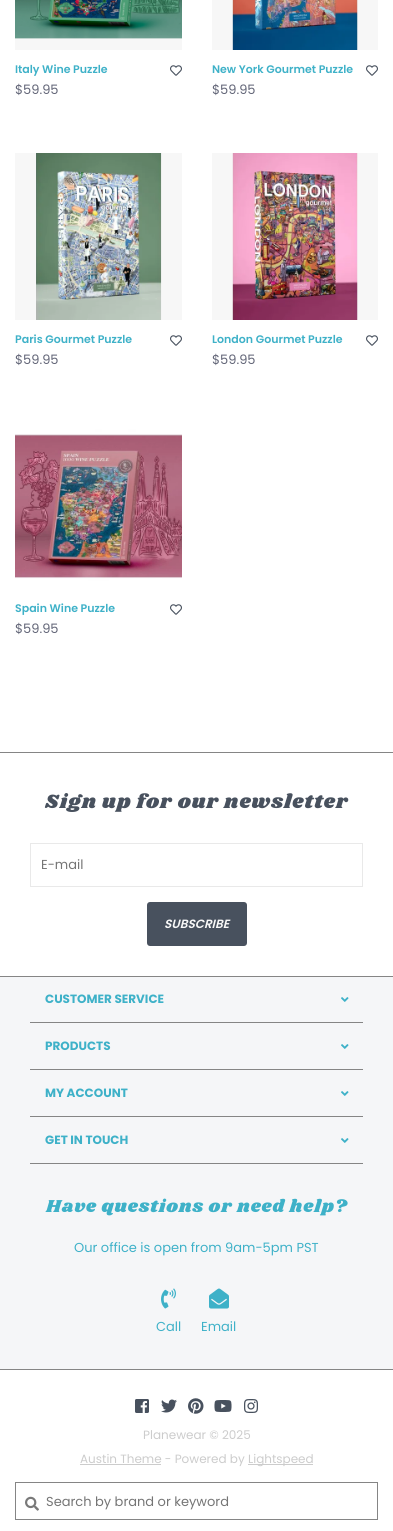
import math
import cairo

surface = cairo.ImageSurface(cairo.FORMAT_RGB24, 393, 1531)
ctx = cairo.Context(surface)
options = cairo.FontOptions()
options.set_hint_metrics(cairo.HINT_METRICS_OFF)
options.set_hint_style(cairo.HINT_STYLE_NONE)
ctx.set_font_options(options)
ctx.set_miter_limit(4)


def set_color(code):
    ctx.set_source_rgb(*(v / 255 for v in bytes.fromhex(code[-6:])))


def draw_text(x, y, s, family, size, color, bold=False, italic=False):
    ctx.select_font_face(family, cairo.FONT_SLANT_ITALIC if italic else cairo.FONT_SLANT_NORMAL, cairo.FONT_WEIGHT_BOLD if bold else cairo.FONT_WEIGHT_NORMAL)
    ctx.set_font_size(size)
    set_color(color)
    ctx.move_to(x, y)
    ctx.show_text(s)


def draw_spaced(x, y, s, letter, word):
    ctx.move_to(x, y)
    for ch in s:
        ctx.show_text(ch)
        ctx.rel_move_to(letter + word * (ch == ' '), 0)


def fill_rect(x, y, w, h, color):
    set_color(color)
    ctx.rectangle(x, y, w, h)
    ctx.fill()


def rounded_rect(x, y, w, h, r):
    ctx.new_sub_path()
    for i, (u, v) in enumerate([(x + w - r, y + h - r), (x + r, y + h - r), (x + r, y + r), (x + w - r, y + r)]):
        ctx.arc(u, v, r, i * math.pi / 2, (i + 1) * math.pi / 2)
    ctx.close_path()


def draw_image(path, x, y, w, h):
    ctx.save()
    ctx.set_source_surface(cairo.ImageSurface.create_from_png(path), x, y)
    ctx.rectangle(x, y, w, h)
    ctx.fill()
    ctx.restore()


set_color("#ffffff")
ctx.paint()
fill_rect(15, 38, 167, 12, "#f7f7f7")
draw_image("assets/img1.png", 15, 0, 167, 39)
draw_text(15, 73, "Italy Wine Puzzle", "Poppins SemiBold", 11, "#3eb1c8")
draw_image("assets/img2.png", 170, 65, 12, 11)
draw_text(15, 94, "$59.95", "Poppins", 13, "#626577")
fill_rect(212, 0, 166, 50, "#f7f7f7")
draw_image("assets/img3.png", 232, 0, 126, 50)
draw_text(212, 73, "New York Gourmet Puzzle", "Poppins SemiBold", 11, "#3eb1c8")
draw_image("assets/img2.png", 366, 65, 12, 11)
draw_text(212, 94, "$59.95", "Poppins", 13, "#626577")
fill_rect(15, 153, 167, 167, "#f7f7f7")
draw_image("assets/img4.png", 36, 153, 126, 167)
draw_text(15, 343, "Paris Gourmet Puzzle", "Poppins SemiBold", 11, "#3eb1c8")
draw_image("assets/img2.png", 170, 335, 12, 11)
draw_text(15, 364, "$59.95", "Poppins", 13, "#626577")
fill_rect(212, 153, 166, 167, "#f7f7f7")
draw_image("assets/img5.png", 232, 153, 126, 167)
draw_text(212, 343, "London Gourmet Puzzle", "Poppins SemiBold", 11, "#3eb1c8")
draw_image("assets/img2.png", 366, 335, 12, 11)
draw_text(212, 364, "$59.95", "Poppins", 13, "#626577")
draw_image("assets/img6.png", 15, 423, 167, 166)
draw_text(15, 612, "Spain Wine Puzzle", "Poppins SemiBold", 11, "#3eb1c8")
draw_image("assets/img2.png", 170, 604, 12, 11)
draw_text(15, 633, "$59.95", "Poppins", 13, "#626577")
fill_rect(0, 752, 393, 1, "#858585")
ctx.select_font_face("Shrikhand")
ctx.set_font_size(20)
set_color("#48515e")
draw_spaced(45, 808, "Sign up for our newsletter", 1, 0)
ctx.rectangle(30.5, 843.5, 332, 43)
set_color("#e9e9e9")
ctx.set_line_width(1)
ctx.stroke()
draw_text(41, 869, "E-mail", "Poppins", 13, "#757575")
set_color("#48515e")
rounded_rect(147, 902, 100, 44, 3)
ctx.fill()
draw_text(164, 928, "SUBSCRIBE", "Poppins SemiBold", 12, "#f8f8f8", italic=True)
fill_rect(0, 977, 393, 392, "#f5f6f8")
fill_rect(0, 976, 393, 1, "#858585")
fill_rect(30, 1022, 333, 1, "#858585")
draw_text(45, 1003, "CUSTOMER SERVICE", "Poppins", 12, "#3eb1c8", bold=True)
draw_image("assets/img7.png", 341, 997, 8, 5)
fill_rect(30, 1069, 333, 1, "#858585")
draw_text(45, 1050, "PRODUCTS", "Poppins", 12, "#3eb1c8", bold=True)
draw_image("assets/img7.png", 341, 1044, 8, 5)
fill_rect(30, 1116, 333, 1, "#858585")
draw_text(45, 1097, "MY ACCOUNT", "Poppins", 12, "#3eb1c8", bold=True)
draw_image("assets/img7.png", 341, 1091, 8, 5)
fill_rect(30, 1163, 333, 1, "#858585")
draw_text(45, 1144, "GET IN TOUCH", "Poppins", 12, "#3eb1c8", bold=True)
draw_image("assets/img7.png", 341, 1138, 8, 5)
ctx.select_font_face("Shrikhand")
ctx.set_font_size(17.9)
draw_spaced(46, 1212, "Have questions or need help?", 0.9, 0)
draw_text(74, 1252, "Our office is open from 9am-5pm PST", "Poppins", 13, "#3eb1c8")
draw_image("assets/img8.png", 161, 1288, 15, 21)
draw_text(156, 1331, "Call", "Poppins", 13, "#3eb1c8")
draw_image("assets/img9.png", 209, 1288, 20, 21)
draw_text(201, 1331, "Email", "Poppins", 13, "#3eb1c8")
fill_rect(0, 1369, 393, 1, "#858585")
draw_image("assets/img10.png", 135, 1399, 14, 14)
draw_image("assets/img11.png", 161, 1399, 16, 14)
draw_image("assets/img12.png", 188, 1398, 16, 16)
draw_image("assets/img13.png", 214, 1400, 18, 12)
draw_image("assets/img14.png", 244, 1399, 14, 14)
draw_text(143, 1439, "Planewear © 2025", "Poppins", 12, "#cccccc")
fill_rect(80, 1464, 81, 1, "#cccccc")
draw_text(80, 1463, "Austin Theme - Powered by", "Poppins", 12, "#cccccc")
fill_rect(248, 1464, 65, 1, "#cccccc")
draw_text(248, 1463, "Lightspeed", "Poppins", 12, "#cccccc")
ctx.rectangle(15.5, 1482.5, 362, 37)
set_color("#858585")
ctx.stroke()
draw_image("assets/img15.png", 25, 1496, 14, 15)
draw_text(46, 1506, "Search by brand or keyword", "Poppins", 13, "#757575")
surface.write_to_png("output.png")
